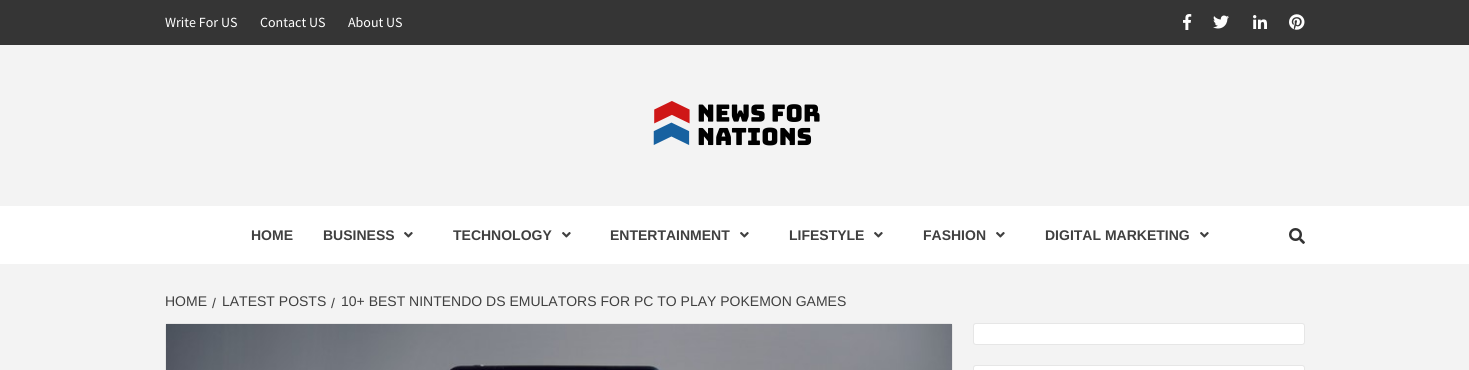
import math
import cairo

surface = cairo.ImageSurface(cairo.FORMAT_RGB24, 1469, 370)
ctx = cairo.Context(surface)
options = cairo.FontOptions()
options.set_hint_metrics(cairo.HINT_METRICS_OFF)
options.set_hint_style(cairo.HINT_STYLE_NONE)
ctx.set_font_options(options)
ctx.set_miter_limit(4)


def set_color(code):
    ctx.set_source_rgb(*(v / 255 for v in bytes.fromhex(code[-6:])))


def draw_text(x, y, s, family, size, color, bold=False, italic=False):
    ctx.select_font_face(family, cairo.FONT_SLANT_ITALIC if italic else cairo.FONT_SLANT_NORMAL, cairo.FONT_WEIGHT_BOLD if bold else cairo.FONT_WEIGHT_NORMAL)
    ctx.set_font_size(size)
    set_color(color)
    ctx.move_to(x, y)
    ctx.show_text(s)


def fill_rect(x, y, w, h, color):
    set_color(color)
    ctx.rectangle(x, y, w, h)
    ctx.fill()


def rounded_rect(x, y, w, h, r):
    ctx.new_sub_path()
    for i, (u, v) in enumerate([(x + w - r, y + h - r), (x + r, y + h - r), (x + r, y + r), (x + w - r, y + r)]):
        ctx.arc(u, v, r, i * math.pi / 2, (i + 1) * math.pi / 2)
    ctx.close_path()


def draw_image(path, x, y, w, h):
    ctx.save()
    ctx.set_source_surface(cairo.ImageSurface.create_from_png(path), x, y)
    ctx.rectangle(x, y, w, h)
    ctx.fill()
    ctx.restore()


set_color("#f3f3f3")
ctx.paint()
fill_rect(0, 0, 1469, 45, "#353535")
draw_text(165, 27, "Write For US", "Source Sans Pro", 14, "#ffffff")
draw_text(260, 27, "Contact US", "Source Sans Pro", 14, "#ffffff")
draw_text(348, 27, "About US", "Source Sans Pro", 14, "#ffffff")
draw_image("assets/img1.png", 1183, 14, 9, 16)
draw_image("assets/img2.png", 1213, 15, 16, 14)
draw_image("assets/img3.png", 1253, 15, 14, 14)
draw_image("assets/img4.png", 1289, 14, 16, 16)
draw_image("assets/img5.png", 653, 101, 167, 45)
fill_rect(0, 206, 1469, 58, "#ffffff")
draw_text(251, 240, "HOME", "Liberation Sans", 14, "#404040", bold=True)
draw_text(323, 240, "BUSINESS", "Liberation Sans", 14, "#404040", bold=True)
draw_image("assets/img6.png", 404, 232, 9, 6)
draw_text(453, 240, "TECHNOLOGY", "Liberation Sans", 14, "#404040", bold=True)
draw_image("assets/img6.png", 562, 232, 9, 6)
draw_text(610, 240, "ENTERTAINMENT", "Liberation Sans", 14, "#404040", bold=True)
draw_image("assets/img6.png", 740, 232, 9, 6)
draw_text(789, 240, "LIFESTYLE", "Liberation Sans", 14, "#404040", bold=True)
draw_image("assets/img6.png", 874, 232, 9, 6)
draw_text(923, 240, "FASHION", "Liberation Sans", 14, "#404040", bold=True)
draw_image("assets/img6.png", 996, 232, 9, 6)
draw_text(1045, 240, "DIGITAL MARKETING", "Liberation Sans", 14, "#404040", bold=True)
draw_image("assets/img6.png", 1200, 232, 9, 6)
draw_image("assets/img7.png", 1289, 228, 16, 16)
draw_text(165, 306, "HOME", "Liberation Sans", 14, "#404040")
draw_text(212, 308, "/", "Liberation Sans", 14, "#404040")
draw_text(222, 306, "LATEST POSTS", "Liberation Sans", 14, "#404040")
draw_text(331, 308, "/", "Liberation Sans", 14, "#404040")
draw_text(341, 306, "10+ BEST NINTENDO DS EMULATORS FOR PC TO PLAY POKEMON GAMES", "Liberation Sans", 14, "#404040")
set_color("#ffffff")
rounded_rect(165, 323, 788, 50, 3)
ctx.fill()
rounded_rect(165.5, 323.5, 787, 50, 2.5)
ctx.set_source_rgba(0, 0.004, 0.004, 0.1)
ctx.set_line_width(1)
ctx.stroke()
draw_image("assets/img8.png", 166, 324, 786, 46)
set_color("#ffffff")
rounded_rect(973, 323, 332, 22, 3)
ctx.fill()
rounded_rect(973.5, 323.5, 331, 21, 2.5)
ctx.set_source_rgba(0, 0.004, 0.004, 0.1)
ctx.stroke()
set_color("#ffffff")
rounded_rect(973, 365, 332, 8, 3)
ctx.fill()
rounded_rect(973.5, 365.5, 331, 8, 2.5)
ctx.set_source_rgba(0, 0.004, 0.004, 0.1)
ctx.stroke()
surface.write_to_png("output.png")
